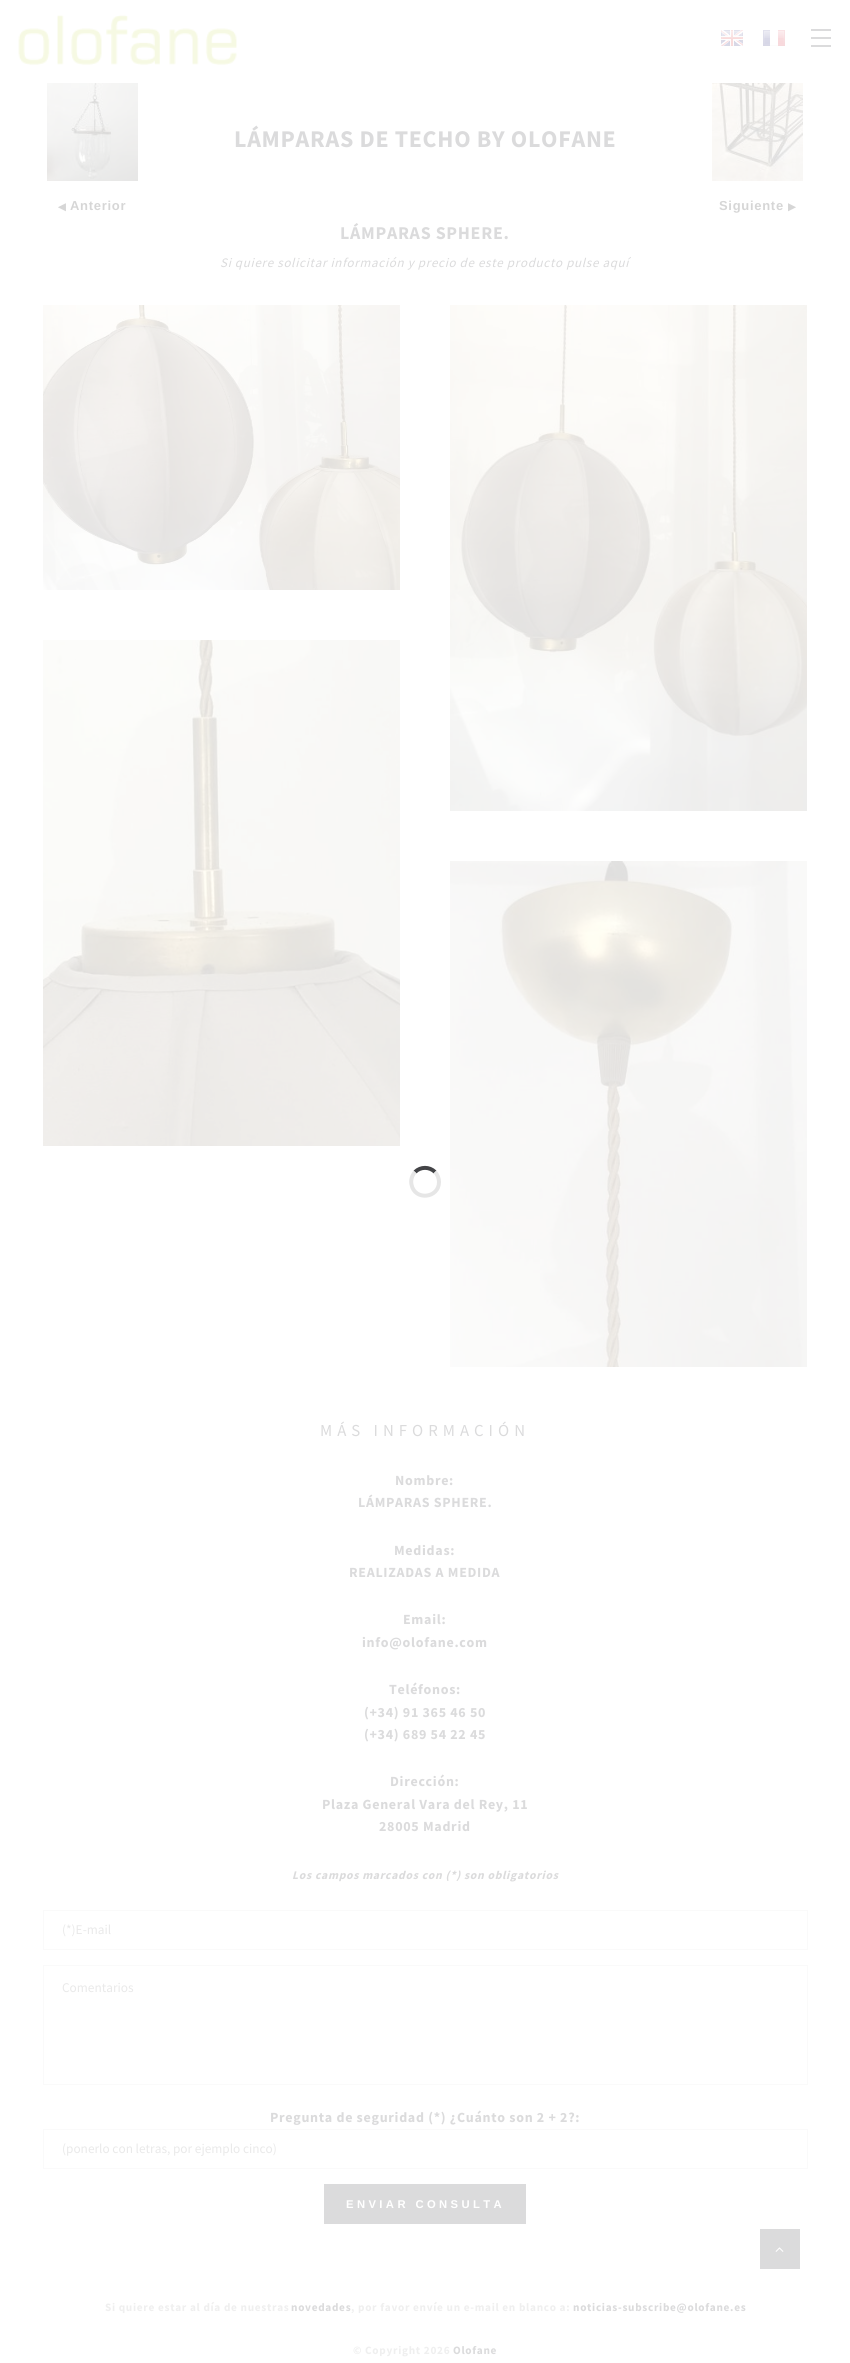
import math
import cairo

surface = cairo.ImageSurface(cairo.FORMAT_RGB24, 850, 2363)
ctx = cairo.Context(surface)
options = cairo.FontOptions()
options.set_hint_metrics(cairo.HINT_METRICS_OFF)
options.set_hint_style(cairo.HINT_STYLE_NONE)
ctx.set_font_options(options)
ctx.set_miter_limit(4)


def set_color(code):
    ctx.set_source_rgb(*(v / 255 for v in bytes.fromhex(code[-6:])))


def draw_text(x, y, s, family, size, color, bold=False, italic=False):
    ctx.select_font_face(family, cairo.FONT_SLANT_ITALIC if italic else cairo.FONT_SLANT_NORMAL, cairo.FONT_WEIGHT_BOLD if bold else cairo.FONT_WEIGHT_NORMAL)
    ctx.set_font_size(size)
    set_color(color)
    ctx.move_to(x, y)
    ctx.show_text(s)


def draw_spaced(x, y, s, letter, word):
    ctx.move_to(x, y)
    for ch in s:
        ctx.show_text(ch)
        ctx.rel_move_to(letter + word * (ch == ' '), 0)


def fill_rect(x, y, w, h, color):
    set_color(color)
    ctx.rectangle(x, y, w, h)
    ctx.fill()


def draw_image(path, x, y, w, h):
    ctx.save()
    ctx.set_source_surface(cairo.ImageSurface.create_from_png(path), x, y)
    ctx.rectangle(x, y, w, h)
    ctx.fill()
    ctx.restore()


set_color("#ffffff")
ctx.paint()
draw_image("assets/img1.png", 18, 14, 219, 52)
draw_image("assets/img2.png", 721, 30, 22, 16)
draw_image("assets/img3.png", 763, 30, 22, 16)
fill_rect(811, 29, 20, 2, "#dbdbdc")
fill_rect(811, 37, 20, 2, "#dbdbdc")
fill_rect(811, 45, 20, 2, "#dbdbdc")
ctx.select_font_face("Source Sans Pro", cairo.FONT_SLANT_NORMAL, cairo.FONT_WEIGHT_BOLD)
ctx.set_font_size(24)
draw_spaced(234, 147, "LÁMPARAS DE TECHO BY OLOFANE", 0.7, 0)
draw_image("assets/img4.png", 47, 83, 91, 98)
ctx.select_font_face("DejaVu Sans", cairo.FONT_SLANT_NORMAL, cairo.FONT_WEIGHT_BOLD)
ctx.set_font_size(10)
set_color("#d6d6d6")
draw_spaced(58, 210, "◀", 0.7, 0)
ctx.select_font_face("Liberation Sans", cairo.FONT_SLANT_NORMAL, cairo.FONT_WEIGHT_BOLD)
ctx.set_font_size(13)
draw_spaced(70, 210, "Anterior", 0.7, 0)
draw_image("assets/img5.png", 712, 83, 91, 98)
draw_spaced(719, 210, "Siguiente", 0.7, 0)
ctx.select_font_face("DejaVu Sans", cairo.FONT_SLANT_NORMAL, cairo.FONT_WEIGHT_BOLD)
ctx.set_font_size(10)
draw_spaced(788, 210, "▶", 0.7, 0)
ctx.select_font_face("Source Sans Pro", cairo.FONT_SLANT_NORMAL, cairo.FONT_WEIGHT_BOLD)
ctx.set_font_size(18)
set_color("#dbdbdc")
draw_spaced(340, 239, "LÁMPARAS SPHERE.", 0.7, 0)
ctx.select_font_face("Source Sans Pro", cairo.FONT_SLANT_ITALIC)
ctx.set_font_size(13)
draw_spaced(220, 267, "Si quiere solicitar información y precio de este producto pulse aquí", 0.7, 0)
draw_image("assets/img6.png", 43, 305, 357, 285)
draw_image("assets/img7.png", 450, 305, 357, 506)
draw_image("assets/img8.png", 43, 640, 357, 506)
draw_image("assets/img9.png", 450, 861, 357, 506)
ctx.select_font_face("Source Sans Pro")
ctx.set_font_size(16.75)
draw_spaced(320, 1436, "MÁS INFORMACIÓN", 5, 0)
ctx.select_font_face("Source Sans Pro", cairo.FONT_SLANT_NORMAL, cairo.FONT_WEIGHT_BOLD)
ctx.set_font_size(14)
draw_spaced(395, 1485, "Nombre:", 0.7, 0)
draw_spaced(358, 1507, "LÁMPARAS SPHERE.", 0.7, 0)
draw_spaced(394, 1555, "Medidas:", 0.7, 0)
draw_spaced(349, 1577, "REALIZADAS A MEDIDA", 0.7, 0)
draw_spaced(403, 1624, "Email:", 0.7, 0)
draw_spaced(362, 1647, "info@olofane.com", 0.7, 0)
draw_spaced(389, 1694, "Teléfonos:", 0.7, 0)
draw_spaced(364, 1717, "(+34) 91 365 46 50", 0.7, 0)
draw_spaced(364, 1739, "(+34) 689 54 22 45", 0.7, 0)
draw_spaced(390, 1786, "Dirección:", 0.7, 0)
draw_spaced(322, 1809, "Plaza General Vara del Rey, 11", 0.7, 0)
draw_spaced(379, 1831, "28005 Madrid", 0.7, 0)
ctx.select_font_face("Source Sans Pro", cairo.FONT_SLANT_ITALIC, cairo.FONT_WEIGHT_BOLD)
ctx.set_font_size(11.7)
draw_spaced(292, 1879, "Los campos marcados con (*) son obligatorios", 0.7, 0)
ctx.rectangle(43.5, 1910.5, 764, 39)
set_color("#fafafa")
ctx.set_line_width(1)
ctx.stroke()
draw_text(62, 1934, "(*)E-mail", "Source Sans Pro", 13.3, "#e9e9e9")
ctx.rectangle(43.5, 1965.5, 764, 119)
set_color("#fafafa")
ctx.stroke()
draw_text(62, 1992, "Comentarios", "Source Sans Pro", 13.3, "#e9e9e9")
ctx.select_font_face("Source Sans Pro", cairo.FONT_SLANT_NORMAL, cairo.FONT_WEIGHT_BOLD)
ctx.set_font_size(14)
set_color("#dbdbdc")
draw_spaced(270, 2122, "Pregunta de seguridad (*) ¿Cuánto son 2 + 2?:", 0.7, 0)
ctx.rectangle(43.5, 2129.5, 764, 39)
set_color("#fafafa")
ctx.stroke()
draw_text(62, 2153, "(ponerlo con letras, por ejemplo cinco)", "Source Sans Pro", 13.3, "#e9e9e9")
fill_rect(324, 2184, 202, 40, "#dbdbdc")
ctx.select_font_face("Liberation Sans", cairo.FONT_SLANT_NORMAL, cairo.FONT_WEIGHT_BOLD)
ctx.set_font_size(11.25)
set_color("#ffffff")
draw_spaced(346, 2208, "ENVIAR CONSULTA", 3.4, 0)
fill_rect(760, 2229, 40, 40, "#dbdbdc")
draw_image("assets/img10.png", 775, 2247, 9, 5)
ctx.select_font_face("Source Sans Pro", cairo.FONT_SLANT_NORMAL, cairo.FONT_WEIGHT_BOLD)
set_color("#efefef")
draw_spaced(105, 2311, "Si quiere estar al día de nuestras", 0.7, 0)
set_color("#dbdbdc")
draw_spaced(291, 2311, "novedades", 0.7, 0)
set_color("#efefef")
draw_spaced(351, 2311, ", por favor envíe un e-mail en blanco a:", 0.7, 0)
set_color("#dbdbdc")
draw_spaced(573, 2311, "noticias-subscribe@olofane.es", 0.7, 0)
set_color("#efefef")
draw_spaced(353, 2354, "© Copyright 2026", 0.7, 0)
set_color("#dbdbdc")
draw_spaced(453, 2354, "Olofane", 0.7, 0)
ctx.new_path()
ctx.move_to(415, 1172)
ctx.curve_to(420.5, 1166.5, 429.5, 1166.5, 435, 1172)
set_color("#434447")
ctx.set_line_width(4)
ctx.stroke()
ctx.new_path()
ctx.move_to(435, 1172)
ctx.curve_to(437.5, 1174.5, 439, 1178.5, 439, 1182)
ctx.curve_to(439, 1198.5, 414.5, 1201, 411.5, 1184.5)
ctx.curve_to(410.5, 1180, 412, 1175.5, 415, 1172)
set_color("#e6e6e6")
ctx.stroke()
surface.write_to_png("output.png")
